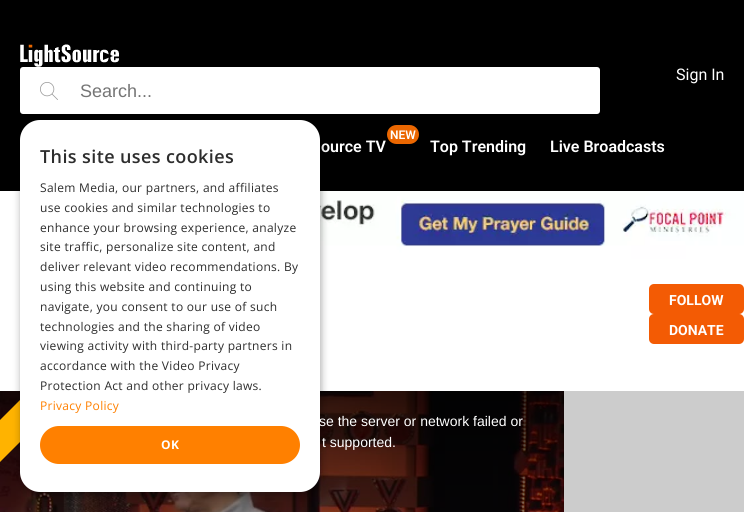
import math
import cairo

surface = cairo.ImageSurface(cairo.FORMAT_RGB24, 744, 512)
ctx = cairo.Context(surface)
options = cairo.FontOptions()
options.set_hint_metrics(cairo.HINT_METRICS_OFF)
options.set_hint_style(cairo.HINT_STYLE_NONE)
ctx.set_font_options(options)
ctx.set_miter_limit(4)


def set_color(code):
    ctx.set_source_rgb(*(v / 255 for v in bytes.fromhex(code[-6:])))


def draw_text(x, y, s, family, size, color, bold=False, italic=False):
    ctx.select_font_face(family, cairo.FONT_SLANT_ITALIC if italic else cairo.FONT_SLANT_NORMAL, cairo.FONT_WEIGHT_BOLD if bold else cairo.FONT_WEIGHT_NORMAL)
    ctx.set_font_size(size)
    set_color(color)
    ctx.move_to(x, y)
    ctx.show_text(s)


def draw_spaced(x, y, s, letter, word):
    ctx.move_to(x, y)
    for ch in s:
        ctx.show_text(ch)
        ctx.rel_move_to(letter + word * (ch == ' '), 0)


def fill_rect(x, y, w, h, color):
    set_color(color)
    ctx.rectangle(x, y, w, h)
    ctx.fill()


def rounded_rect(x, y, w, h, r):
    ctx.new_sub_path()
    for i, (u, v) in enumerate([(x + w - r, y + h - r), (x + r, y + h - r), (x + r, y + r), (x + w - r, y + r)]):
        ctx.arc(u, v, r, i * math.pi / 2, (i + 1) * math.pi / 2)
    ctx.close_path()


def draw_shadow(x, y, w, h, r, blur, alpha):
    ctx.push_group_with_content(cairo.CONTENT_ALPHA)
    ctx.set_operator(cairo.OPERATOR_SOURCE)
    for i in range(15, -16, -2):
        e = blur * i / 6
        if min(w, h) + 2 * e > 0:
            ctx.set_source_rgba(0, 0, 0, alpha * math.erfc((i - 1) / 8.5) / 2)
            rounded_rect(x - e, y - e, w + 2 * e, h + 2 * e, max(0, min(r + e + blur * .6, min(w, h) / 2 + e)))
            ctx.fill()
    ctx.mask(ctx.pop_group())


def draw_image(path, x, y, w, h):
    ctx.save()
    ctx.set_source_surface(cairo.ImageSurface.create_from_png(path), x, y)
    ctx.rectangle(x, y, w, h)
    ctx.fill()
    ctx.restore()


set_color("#cccccc")
ctx.paint()
fill_rect(0, 0, 744, 191, "#000000")
draw_image("assets/img1.png", 20, 44, 99, 23)
draw_text(676, 80, "Sign In", "Roboto", 16, "#ffffff")
rounded_rect(20, 67, 580, 47, 3)
ctx.fill()
draw_image("assets/img2.png", 40, 82, 18, 18)
draw_text(80, 97, "Search...", "Liberation Sans", 18, "#757575")
set_color("#eb6701")
rounded_rect(387, 125, 32, 19, 9.5)
ctx.fill()
draw_text(390, 139, "NEW", "Roboto SemiBold", 12, "#ffffff")
draw_text(321, 152, "ource TV", "Roboto SemiBold", 16, "#ffffff")
draw_text(430, 152, "Top Trending", "Roboto SemiBold", 16, "#ffffff")
draw_text(550, 152, "Live Broadcasts", "Roboto SemiBold", 16, "#ffffff")
draw_image("assets/img3.png", 0, 191, 744, 68)
fill_rect(0, 259, 744, 132, "#ffffff")
draw_image("assets/img4.png", 0, 391, 564, 121)
set_color("#ffb300")
ctx.new_path()
ctx.move_to(-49, 469)
ctx.line_to(79, 341)
ctx.line_to(100, 362)
ctx.line_to(-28, 490)
ctx.close_path()
ctx.fill()
set_color("#000000")
draw_shadow(21, 122, 300, 372, 20, 4, 0.35)
set_color("#ffffff")
rounded_rect(20, 120, 300, 372, 20)
ctx.fill()
ctx.select_font_face("Open Sans SemiBold")
ctx.set_font_size(18)
set_color("#2d2d2d")
draw_spaced(40, 163, "This site uses cookies", 0.4, 0)
ctx.select_font_face("Open Sans")
ctx.set_font_size(12)
draw_spaced(40, 192, "Salem Media, our partners, and affiliates", 0.3, 0)
draw_spaced(40, 212, "use cookies and similar technologies to", 0.3, 0)
draw_spaced(40, 232, "enhance your browsing experience, analyze", 0.3, 0)
draw_spaced(40, 251, "site traffic, personalize site content, and", 0.3, 0)
draw_spaced(40, 271, "deliver relevant video recommendations. By", 0.3, 0)
draw_spaced(40, 291, "using this website and continuing to", 0.3, 0)
draw_spaced(40, 311, "navigate, you consent to our use of such", 0.3, 0)
draw_spaced(40, 331, "technologies and the sharing of video", 0.3, 0)
draw_spaced(40, 350, "viewing activity with third-party partners in", 0.3, 0)
draw_spaced(40, 370, "accordance with the Video Privacy", 0.3, 0)
draw_spaced(40, 390, "Protection Act and other privacy laws.", 0.3, 0)
set_color("#ff8000")
draw_spaced(40, 410, "Privacy Policy", 0.3, 0)
rounded_rect(40, 426, 260, 38, 19)
ctx.fill()
ctx.select_font_face("Open Sans", cairo.FONT_SLANT_NORMAL, cairo.FONT_WEIGHT_BOLD)
set_color("#ffffff")
draw_spaced(161, 449, "OK", 0.4, 0)
set_color("#f35b04")
rounded_rect(649, 284, 95, 30, 5)
ctx.fill()
draw_text(669, 305, "FOLLOW", "Roboto", 14, "#ffffff", bold=True)
set_color("#f35b04")
rounded_rect(649, 314, 95, 30, 5)
ctx.fill()
draw_text(669, 335, "DONATE", "Roboto", 14, "#ffffff", bold=True)
draw_text(319, 426, "se the server or network failed or", "Liberation Sans", 14, "#ffffff")
draw_text(322, 447, "t supported.", "Liberation Sans", 14, "#ffffff")
surface.write_to_png("output.png")
